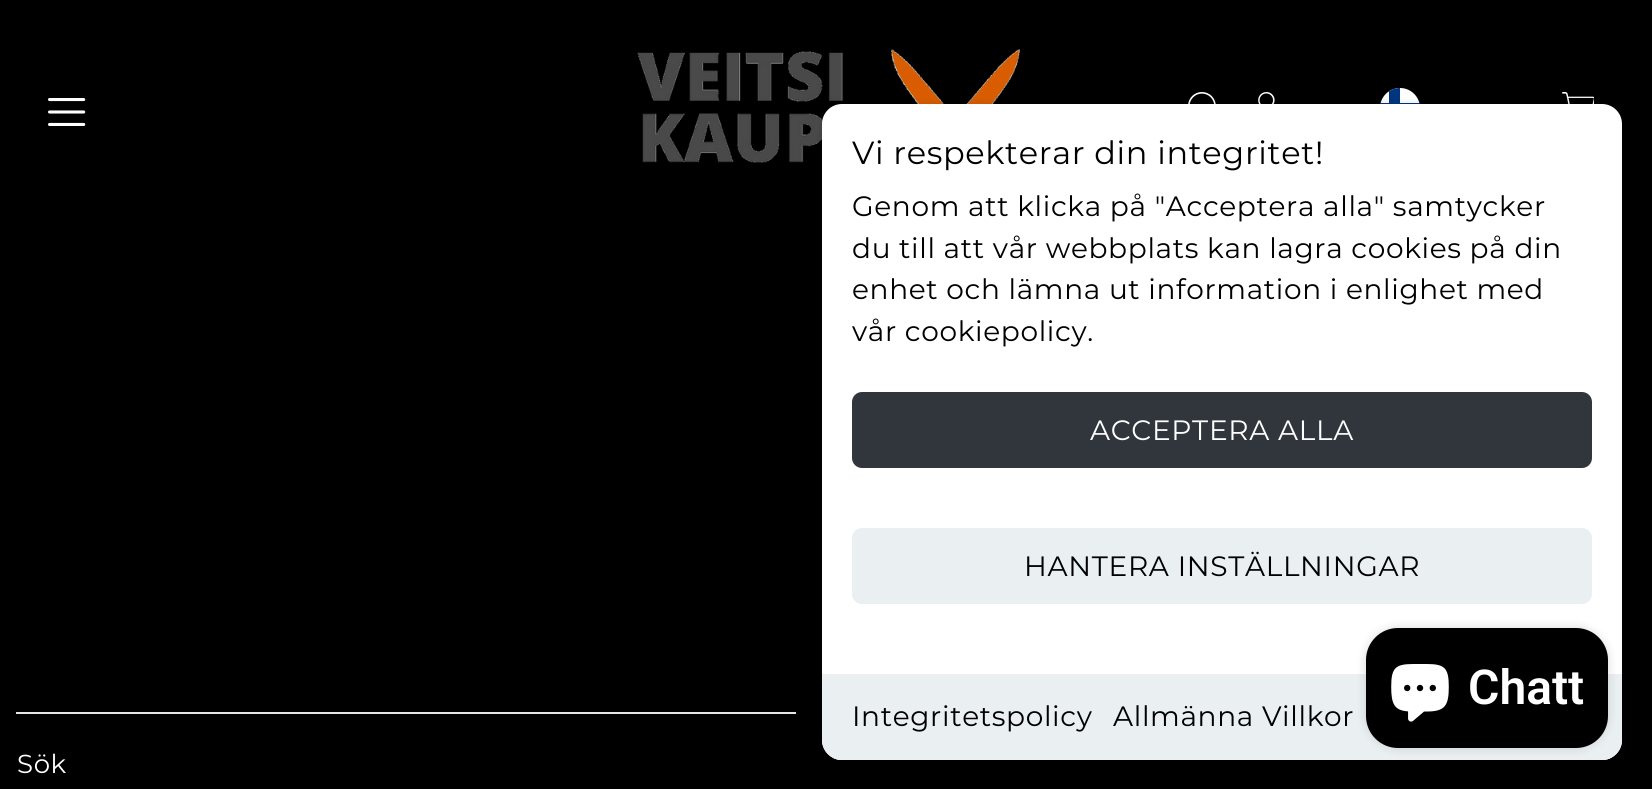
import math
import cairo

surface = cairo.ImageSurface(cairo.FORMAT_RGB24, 1652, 789)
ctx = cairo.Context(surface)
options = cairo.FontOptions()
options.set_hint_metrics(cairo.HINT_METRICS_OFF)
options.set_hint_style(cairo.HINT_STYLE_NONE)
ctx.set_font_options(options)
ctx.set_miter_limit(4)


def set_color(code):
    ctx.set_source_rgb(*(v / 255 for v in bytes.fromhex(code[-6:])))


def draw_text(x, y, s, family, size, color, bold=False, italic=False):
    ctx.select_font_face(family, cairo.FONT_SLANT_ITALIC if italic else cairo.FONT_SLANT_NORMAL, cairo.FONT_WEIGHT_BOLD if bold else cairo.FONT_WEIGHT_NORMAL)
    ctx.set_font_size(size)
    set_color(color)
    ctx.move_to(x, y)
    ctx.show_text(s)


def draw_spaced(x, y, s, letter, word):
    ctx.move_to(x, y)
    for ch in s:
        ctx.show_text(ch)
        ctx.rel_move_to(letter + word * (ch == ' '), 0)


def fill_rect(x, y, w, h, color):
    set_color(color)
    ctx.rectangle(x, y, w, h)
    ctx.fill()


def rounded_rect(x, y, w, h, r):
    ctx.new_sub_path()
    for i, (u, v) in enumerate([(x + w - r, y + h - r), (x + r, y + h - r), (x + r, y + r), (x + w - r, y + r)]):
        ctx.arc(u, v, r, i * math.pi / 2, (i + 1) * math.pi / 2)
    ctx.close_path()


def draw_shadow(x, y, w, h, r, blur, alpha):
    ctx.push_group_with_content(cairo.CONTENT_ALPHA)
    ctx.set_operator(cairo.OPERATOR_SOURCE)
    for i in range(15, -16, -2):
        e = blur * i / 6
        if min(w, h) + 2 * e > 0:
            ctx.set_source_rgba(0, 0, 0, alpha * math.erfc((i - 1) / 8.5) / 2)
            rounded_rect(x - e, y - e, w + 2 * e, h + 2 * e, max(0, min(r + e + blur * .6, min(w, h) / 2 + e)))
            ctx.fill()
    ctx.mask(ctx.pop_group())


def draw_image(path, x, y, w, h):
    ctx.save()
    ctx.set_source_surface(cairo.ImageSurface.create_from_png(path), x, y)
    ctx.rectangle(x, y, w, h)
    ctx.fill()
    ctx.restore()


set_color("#000000")
ctx.paint()
draw_image("assets/img3.png", 637, 49, 383, 114)
draw_image("assets/img4.png", 1188, 92, 28, 12)
draw_image("assets/img5.png", 1258, 92, 17, 12)
set_color("#ffffff")
ctx.arc(1400, 108, 20, 0, 2 * math.pi)
ctx.fill()
fill_rect(1380, 103, 40, 1, "#003580")
ctx.save()
rounded_rect(1380, 88, 40, 40, 20)
ctx.clip()
fill_rect(1389, 88, 11, 16, "#003580")
ctx.restore()
draw_image("assets/img6.png", 1562, 92, 32, 12)
set_color("#000000")
draw_shadow(826, 108, 800, 656, 20, 6, 0.15)
draw_shadow(826, 108, 800, 656, 20, 6, 0.15)
set_color("#ffffff")
rounded_rect(822, 104, 800, 656, 20)
ctx.fill()
ctx.select_font_face("Montserrat")
ctx.set_font_size(32)
set_color("#000000")
draw_spaced(852, 164, "Vi respekterar din integritet!", 0.65, 0)
ctx.set_font_size(28)
draw_spaced(852, 216, "Genom att klicka på \"Acceptera alla\" samtycker", 0.65, 0)
draw_spaced(852, 258, "du till att vår webbplats kan lagra cookies på din", 0.65, 0)
draw_spaced(852, 299, "enhet och lämna ut information i enlighet med", 0.65, 0)
draw_spaced(852, 341, "vår cookiepolicy.", 0.65, 0)
set_color("#30363c")
rounded_rect(852, 392, 740, 76, 10)
ctx.fill()
set_color("#ffffff")
draw_spaced(1090, 440, "ACCEPTERA ALLA", 0.7, 0)
set_color("#eaeff2")
rounded_rect(852, 528, 740, 76, 10)
ctx.fill()
set_color("#000000")
draw_spaced(1024, 576, "HANTERA INSTÄLLNINGAR", 0.7, 0)
set_color("#eaeff2")
ctx.new_path()
ctx.move_to(822, 674)
ctx.line_to(1622, 674)
ctx.line_to(1622, 740)
ctx.curve_to(1622, 751, 1613, 760, 1602, 760)
ctx.line_to(842, 760)
ctx.curve_to(831, 760, 822, 751, 822, 740)
ctx.close_path()
ctx.fill()
fill_rect(822, 674, 800, 2, "#eeeeee")
ctx.save()
rounded_rect(822, 104, 800, 656, 20)
ctx.clip()
fill_rect(833, 758, 778, 2, "#eeeeee")
ctx.restore()
set_color("#000000")
draw_spaced(852, 726, "Integritetspolicy", 0.65, 0)
draw_spaced(1113, 726, "Allmänna Villkor", 0.65, 0)
set_color("#000000")
draw_shadow(1366, 628, 242, 120, 32, 5, 0.15)
set_color("#000000")
rounded_rect(1366, 628, 242, 120, 32)
ctx.fill()
draw_image("assets/img1.png", 1391, 664, 58, 58)
draw_text(1468, 704, "Chatt", "Roboto SemiBold", 48, "#ffffff")
draw_image("assets/img2.png", 48, 98, 38, 28)
fill_rect(16, 712, 780, 2, "#e5e5e5")
ctx.select_font_face("Montserrat")
ctx.set_font_size(26)
set_color("#ffffff")
draw_spaced(17, 773, "Sök", 0.65, 0)
surface.write_to_png("output.png")
